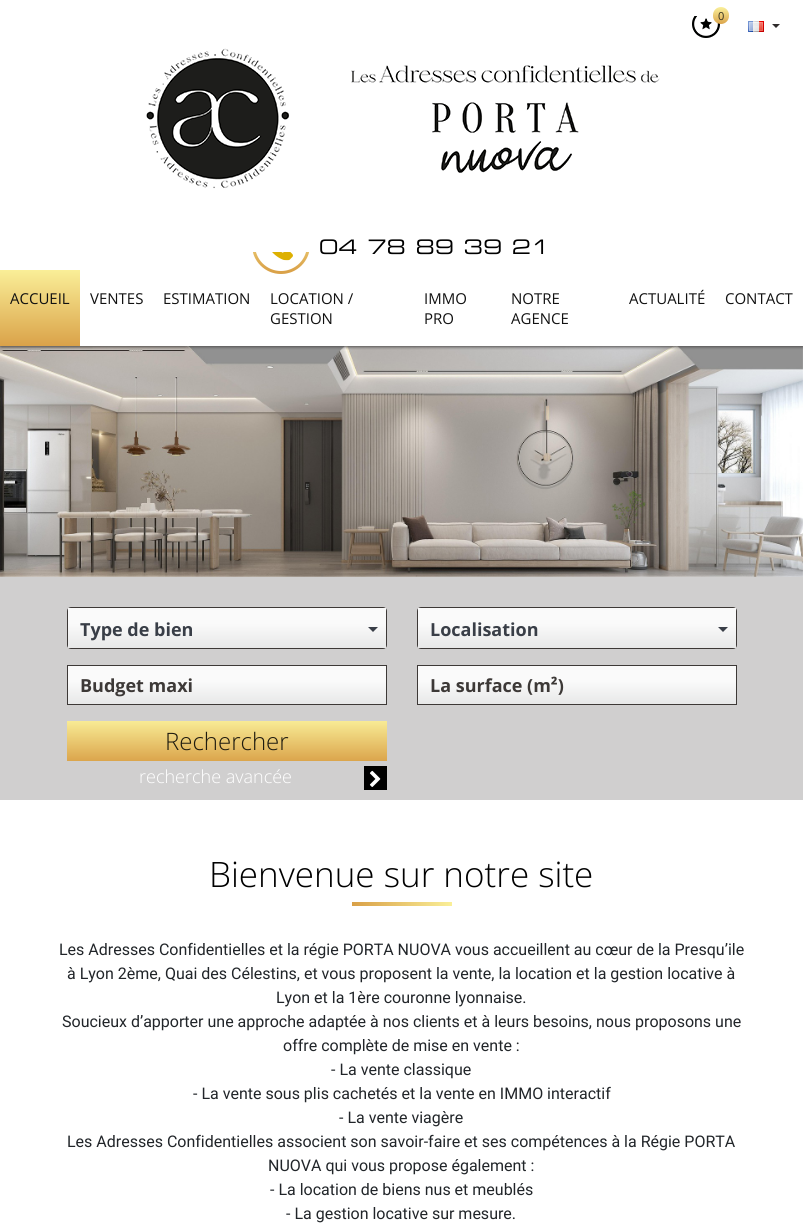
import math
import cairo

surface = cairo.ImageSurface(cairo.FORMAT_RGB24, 803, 1231)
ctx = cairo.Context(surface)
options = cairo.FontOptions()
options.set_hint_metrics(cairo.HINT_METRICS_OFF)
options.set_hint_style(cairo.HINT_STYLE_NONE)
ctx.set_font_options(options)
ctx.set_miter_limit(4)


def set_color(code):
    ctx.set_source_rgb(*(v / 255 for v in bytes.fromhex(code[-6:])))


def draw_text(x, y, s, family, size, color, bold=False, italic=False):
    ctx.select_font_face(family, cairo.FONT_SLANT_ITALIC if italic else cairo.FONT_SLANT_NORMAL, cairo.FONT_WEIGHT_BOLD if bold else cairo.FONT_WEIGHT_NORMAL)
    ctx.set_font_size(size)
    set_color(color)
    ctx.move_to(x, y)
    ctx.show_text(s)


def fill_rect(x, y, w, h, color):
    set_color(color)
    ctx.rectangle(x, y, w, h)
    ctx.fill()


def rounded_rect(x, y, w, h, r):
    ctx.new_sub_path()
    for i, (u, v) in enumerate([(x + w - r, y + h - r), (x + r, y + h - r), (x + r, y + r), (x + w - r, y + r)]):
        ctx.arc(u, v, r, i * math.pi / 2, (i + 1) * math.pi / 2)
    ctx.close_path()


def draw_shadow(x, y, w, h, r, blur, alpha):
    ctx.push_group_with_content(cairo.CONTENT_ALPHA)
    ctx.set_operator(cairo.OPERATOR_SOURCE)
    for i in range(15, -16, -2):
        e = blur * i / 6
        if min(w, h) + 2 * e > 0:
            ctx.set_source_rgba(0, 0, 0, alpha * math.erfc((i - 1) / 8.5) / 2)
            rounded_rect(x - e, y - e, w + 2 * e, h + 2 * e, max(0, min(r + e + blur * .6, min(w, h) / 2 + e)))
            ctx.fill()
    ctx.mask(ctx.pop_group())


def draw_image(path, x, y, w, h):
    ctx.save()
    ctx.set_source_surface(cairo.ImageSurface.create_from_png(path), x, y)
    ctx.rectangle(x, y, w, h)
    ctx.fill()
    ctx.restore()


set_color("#ffffff")
ctx.paint()
draw_image("assets/img5.png", 0, 346, 803, 231)
ctx.save()
ctx.rectangle(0, 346, 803, 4)
ctx.clip()
set_color("#4e4d4d")
draw_shadow(0, 1, 803, 346, 0, 1.5, 1)
ctx.restore()
draw_image("assets/img1.png", 692, 16, 28, 22)
gradient = cairo.LinearGradient(721, 7, 721, 24)
gradient.add_color_stop_rgba(0, 0.98, 0.941, 0.608, 1)
gradient.add_color_stop_rgba(1, 0.859, 0.647, 0.298, 1)
ctx.set_source(gradient)
rounded_rect(713, 7, 16, 17, 8)
ctx.fill()
draw_text(718, 20, "0", "Open Sans", 11, "#312e1c")
draw_image("assets/img2.png", 748, 21, 16, 11)
set_color("#2f2b2b")
ctx.new_path()
ctx.move_to(772, 24)
ctx.line_to(780, 24)
ctx.line_to(776, 28)
ctx.close_path()
ctx.fill()
draw_image("assets/img3.png", 146, 48, 514, 141)
draw_text(319, 254, "04 78 89 39 21", "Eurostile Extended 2 Medium", 20, "#000000")
draw_image("assets/img4.png", 253, 252, 57, 22)
gradient = cairo.LinearGradient(40, 270, 40, 346)
gradient.add_color_stop_rgba(0, 0.98, 0.937, 0.596, 1)
gradient.add_color_stop_rgba(1, 0.855, 0.635, 0.286, 1)
ctx.set_source(gradient)
ctx.rectangle(0, 270, 80, 76)
ctx.fill()
draw_text(10, 304, "ACCUEIL", "Open Sans", 15, "#111111")
draw_text(90, 304, "VENTES", "Open Sans", 15, "#111111")
draw_text(163, 304, "ESTIMATION", "Open Sans", 15, "#111111")
draw_text(270, 304, "LOCATION /", "Open Sans", 15, "#111111")
draw_text(270, 324, "GESTION", "Open Sans", 15, "#111111")
draw_text(424, 304, "IMMO", "Open Sans", 15, "#111111")
draw_text(424, 324, "PRO", "Open Sans", 15, "#111111")
draw_text(511, 304, "NOTRE", "Open Sans", 15, "#111111")
draw_text(511, 324, "AGENCE", "Open Sans", 15, "#111111")
draw_text(629, 304, "ACTUALITÉ", "Open Sans", 15, "#111111")
draw_text(725, 304, "CONTACT", "Open Sans", 15, "#111111")
fill_rect(0, 577, 803, 223, "#d0cfcf")
rounded_rect(67.5, 607.5, 319, 41, 3.5)
set_color("#3d3937")
ctx.set_line_width(1)
ctx.stroke()
gradient = cairo.LinearGradient(227, 608, 227, 656)
gradient.add_color_stop_rgba(0.33, 0.98, 0.98, 0.98, 1)
gradient.add_color_stop_rgba(1, 0.882, 0.886, 0.886, 1)
ctx.set_source(gradient)
ctx.rectangle(68, 608, 318, 40)
ctx.fill()
draw_text(80, 636, "Type de bien", "Open Sans", 18, "#393e47", bold=True)
ctx.new_path()
ctx.move_to(368, 627)
ctx.line_to(378, 627)
ctx.line_to(373, 632)
ctx.close_path()
ctx.fill()
rounded_rect(417.5, 607.5, 319, 41, 3.5)
set_color("#3d3937")
ctx.stroke()
gradient = cairo.LinearGradient(577, 608, 577, 656)
gradient.add_color_stop_rgba(0.33, 0.98, 0.98, 0.98, 1)
gradient.add_color_stop_rgba(1, 0.882, 0.886, 0.886, 1)
ctx.set_source(gradient)
ctx.rectangle(418, 608, 318, 40)
ctx.fill()
draw_text(430, 636, "Localisation", "Open Sans", 18, "#393e47", bold=True)
ctx.new_path()
ctx.move_to(718, 627)
ctx.line_to(728, 627)
ctx.line_to(723, 632)
ctx.close_path()
ctx.fill()
gradient = cairo.LinearGradient(227, 666, 227, 712)
gradient.add_color_stop_rgba(0.33, 0.98, 0.98, 0.98, 1)
gradient.add_color_stop_rgba(1, 0.882, 0.886, 0.886, 1)
ctx.set_source(gradient)
ctx.rectangle(68, 666, 318, 38)
ctx.fill()
ctx.rectangle(67.5, 665.5, 319, 39)
set_color("#3d3937")
ctx.stroke()
draw_text(80, 692, "Budget maxi", "Open Sans", 18, "#3d3937", bold=True)
gradient = cairo.LinearGradient(577, 666, 577, 712)
gradient.add_color_stop_rgba(0.33, 0.98, 0.98, 0.98, 1)
gradient.add_color_stop_rgba(1, 0.882, 0.886, 0.886, 1)
ctx.set_source(gradient)
ctx.rectangle(418, 666, 318, 38)
ctx.fill()
ctx.rectangle(417.5, 665.5, 319, 39)
set_color("#3d3937")
ctx.stroke()
draw_text(430, 692, "La surface (m²)", "Open Sans", 18, "#3d3937", bold=True)
gradient = cairo.LinearGradient(227, 721, 227, 761)
gradient.add_color_stop_rgba(0, 0.973, 0.922, 0.584, 1)
gradient.add_color_stop_rgba(1, 0.859, 0.647, 0.298, 1)
ctx.set_source(gradient)
ctx.rectangle(67, 721, 320, 40)
ctx.fill()
draw_text(165, 750, "Rechercher", "Open Sans Light", 24, "#1f1b0f")
draw_text(139, 783, "recherche avancée", "Open Sans Light", 18, "#ffffff")
fill_rect(364, 766, 23, 24, "#000000")
draw_image("assets/img6.png", 369, 770, 12, 17)
draw_text(209, 887, "Bienvenue sur notre site", "Open Sans Light", 35, "#000000")
gradient = cairo.LinearGradient(352, 904, 452, 904)
gradient.add_color_stop_rgba(0, 0.851, 0.627, 0.278, 1)
gradient.add_color_stop_rgba(1, 0.98, 0.937, 0.596, 1)
ctx.set_source(gradient)
ctx.rectangle(352, 902, 100, 4)
ctx.fill()
draw_text(59, 955, "Les Adresses Confidentielles et la régie PORTA NUOVA vous accueillent au cœur de la Presqu’ile", "Roboto", 16, "#212529")
draw_text(67, 979, "à Lyon 2ème, Quai des Célestins, et vous proposent la vente, la location et la gestion locative à", "Roboto", 16, "#212529")
draw_text(276, 1003, "Lyon et la 1ère couronne lyonnaise.", "Roboto", 16, "#212529")
draw_text(62, 1027, "Soucieux d’apporter une approche adaptée à nos clients et à leurs besoins, nous proposons une", "Roboto", 16, "#212529")
draw_text(283, 1051, "offre complète de mise en vente :", "Roboto", 16, "#212529")
draw_text(331, 1075, "- La vente classique", "Roboto", 16, "#212529")
draw_text(193, 1099, "- La vente sous plis cachetés et la vente en IMMO interactif", "Roboto", 16, "#212529")
draw_text(339, 1123, "- La vente viagère", "Roboto", 16, "#212529")
draw_text(67, 1147, "Les Adresses Confidentielles associent son savoir-faire et ses compétences à la Régie PORTA", "Roboto", 16, "#212529")
draw_text(268, 1171, "NUOVA qui vous propose également :", "Roboto", 16, "#212529")
draw_text(270, 1195, "- La location de biens nus et meublés", "Roboto", 16, "#212529")
draw_text(286, 1219, "- La gestion locative sur mesure.", "Roboto", 16, "#212529")
surface.write_to_png("output.png")
